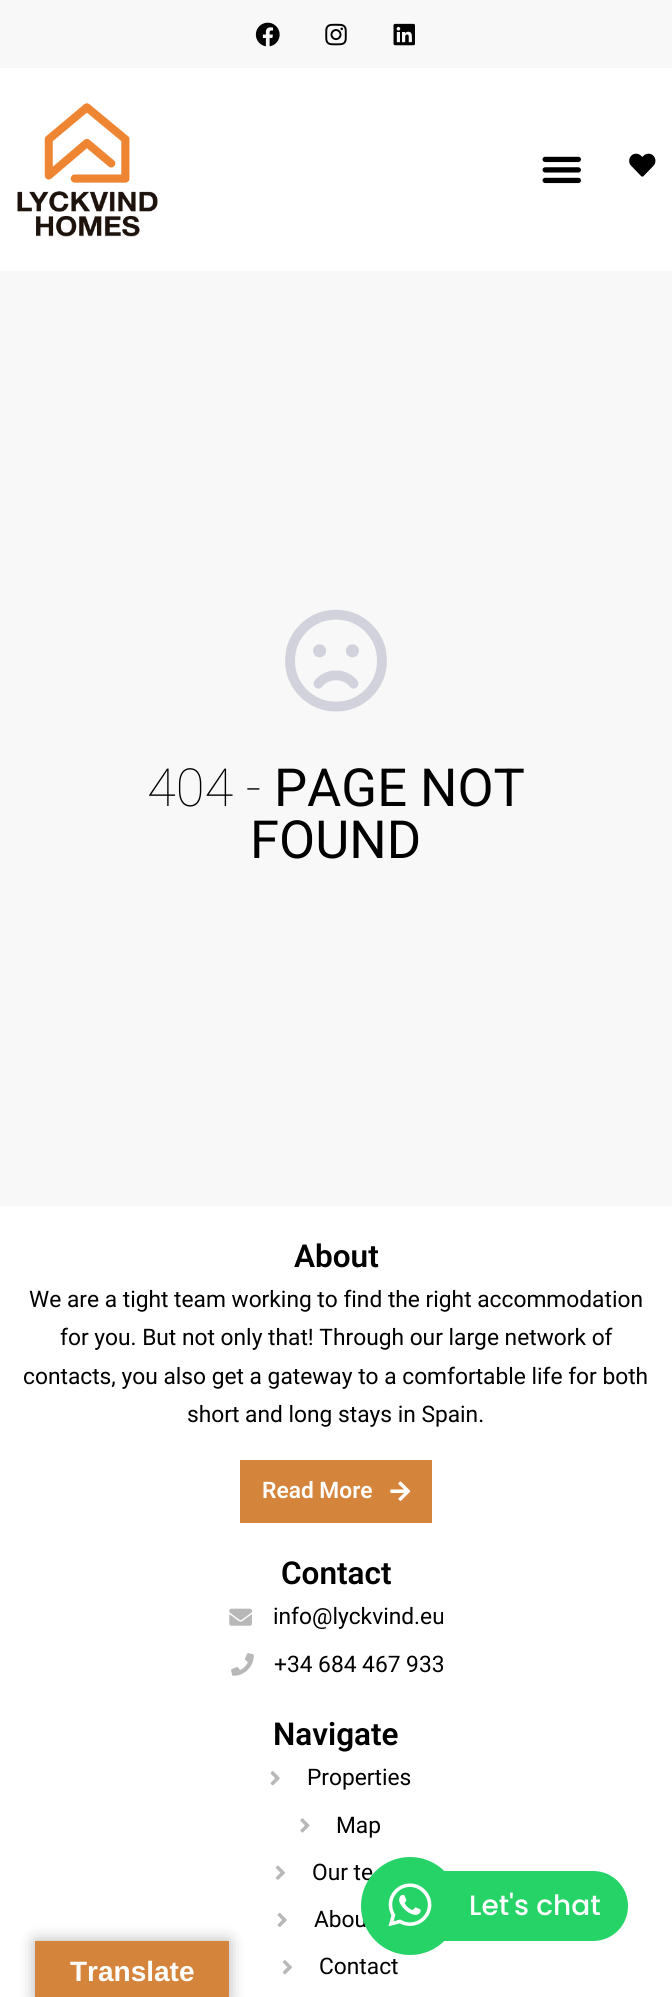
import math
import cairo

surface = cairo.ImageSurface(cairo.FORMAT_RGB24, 672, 1997)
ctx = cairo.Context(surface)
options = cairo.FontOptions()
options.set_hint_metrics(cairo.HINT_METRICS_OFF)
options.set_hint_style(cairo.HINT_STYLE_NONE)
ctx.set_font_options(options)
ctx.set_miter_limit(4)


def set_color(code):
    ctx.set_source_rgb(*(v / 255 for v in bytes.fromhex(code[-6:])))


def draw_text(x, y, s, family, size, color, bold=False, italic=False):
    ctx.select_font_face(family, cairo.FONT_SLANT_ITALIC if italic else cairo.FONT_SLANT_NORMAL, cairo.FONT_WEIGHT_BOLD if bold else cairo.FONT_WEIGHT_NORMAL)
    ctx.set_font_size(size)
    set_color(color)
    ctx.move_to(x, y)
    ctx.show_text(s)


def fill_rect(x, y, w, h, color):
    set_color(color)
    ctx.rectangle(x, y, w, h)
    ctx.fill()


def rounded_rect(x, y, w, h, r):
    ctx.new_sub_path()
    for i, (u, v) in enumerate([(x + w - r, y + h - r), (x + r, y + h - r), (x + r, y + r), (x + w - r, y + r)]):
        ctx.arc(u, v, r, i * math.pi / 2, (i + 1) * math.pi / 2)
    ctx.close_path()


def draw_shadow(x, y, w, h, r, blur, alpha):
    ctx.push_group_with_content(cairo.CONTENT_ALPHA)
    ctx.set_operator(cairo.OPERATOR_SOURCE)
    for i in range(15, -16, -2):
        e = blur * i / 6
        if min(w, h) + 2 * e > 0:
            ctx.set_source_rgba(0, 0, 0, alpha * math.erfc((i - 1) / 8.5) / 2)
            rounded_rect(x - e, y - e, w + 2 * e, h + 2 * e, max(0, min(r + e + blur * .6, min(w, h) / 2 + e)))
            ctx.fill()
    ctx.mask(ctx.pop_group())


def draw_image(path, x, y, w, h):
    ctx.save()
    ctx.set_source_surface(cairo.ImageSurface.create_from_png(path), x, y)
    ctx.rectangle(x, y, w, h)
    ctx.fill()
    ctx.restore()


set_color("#ffffff")
ctx.paint()
fill_rect(0, 0, 672, 68, "#f8f8f8")
draw_image("assets/img1.png", 255, 22, 25, 25)
draw_image("assets/img2.png", 325, 23, 22, 23)
draw_image("assets/img3.png", 393, 23, 22, 23)
draw_image("assets/img4.png", 17, 103, 141, 134)
draw_image("assets/img5.png", 542, 156, 39, 28)
draw_image("assets/img6.png", 629, 153, 27, 24)
fill_rect(0, 271, 672, 935, "#f8f8f8")
draw_image("assets/img7.png", 285, 609, 102, 103)
draw_text(147, 806, "404 -", "Roboto Thin", 52.5, "#000000")
draw_text(274, 806, "PAGE NOT", "Roboto", 52.5, "#000000")
draw_text(250, 858, "FOUND", "Roboto", 52.5, "#000000")
draw_text(294, 1267, "About", "Roboto SemiBold", 31.5, "#000000")
draw_text(29, 1307, "We are a tight team working to find the right accommodation", "Roboto", 22.75, "#000000")
draw_text(60, 1345, "for you. But not only that! Through our large network of", "Roboto", 22.75, "#000000")
draw_text(23, 1384, "contacts, you also get a gateway to a comfortable life for both", "Roboto", 22.75, "#000000")
draw_text(187, 1422, "short and long stays in Spain.", "Roboto", 22.75, "#000000")
fill_rect(240, 1460, 192, 63, "#d5843b")
draw_text(262, 1498, "Read More", "Roboto SemiBold", 22.75, "#ffffff")
draw_image("assets/img8.png", 390, 1481, 21, 20)
draw_text(281, 1584, "Contact", "Roboto SemiBold", 31.5, "#000000")
draw_image("assets/img9.png", 229, 1608, 23, 18)
draw_text(273, 1624, "info@lyckvind.eu", "Roboto", 22.75, "#000000")
draw_image("assets/img10.png", 231, 1653, 23, 23)
draw_text(274, 1672, "+34 684 467 933", "Roboto", 22.75, "#000000")
draw_text(273, 1745, "Navigate", "Roboto SemiBold", 31.5, "#000000")
draw_image("assets/img11.png", 270, 1771, 10, 15)
draw_text(307, 1785, "Properties", "Roboto", 22.75, "#000000")
draw_image("assets/img12.png", 300, 1818, 10, 15)
draw_text(336, 1833, "Map", "Roboto", 22.75, "#000000")
draw_image("assets/img13.png", 275, 1865, 10, 15)
draw_text(312, 1880, "Our te", "Roboto", 22.75, "#000000")
draw_image("assets/img14.png", 277, 1912, 10, 15)
draw_text(314, 1927, "Abou", "Roboto", 22.75, "#000000")
draw_image("assets/img15.png", 282, 1960, 10, 15)
draw_text(319, 1974, "Contact", "Roboto", 22.75, "#000000")
set_color("#25d366")
ctx.new_path()
ctx.move_to(441, 1871)
ctx.line_to(593, 1871)
ctx.curve_to(612.5, 1871, 628, 1886.5, 628, 1906)
ctx.curve_to(628, 1925.5, 612.5, 1941, 593, 1941)
ctx.line_to(441, 1941)
ctx.close_path()
ctx.fill()
ctx.arc(410, 1906, 49, 0, 2 * math.pi)
ctx.fill()
draw_image("assets/img16.png", 388, 1883, 44, 44)
draw_text(469, 1915, "Let's chat", "Poppins Medium", 28, "#ffffff")
set_color("#000000")
draw_shadow(35, 1941, 194, 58, 0, 8, 0.3)
fill_rect(35, 1941, 194, 56, "#d5843b")
draw_text(70, 1981, "Translate", "Liberation Sans", 28, "#ffffff", bold=True)
surface.write_to_png("output.png")
